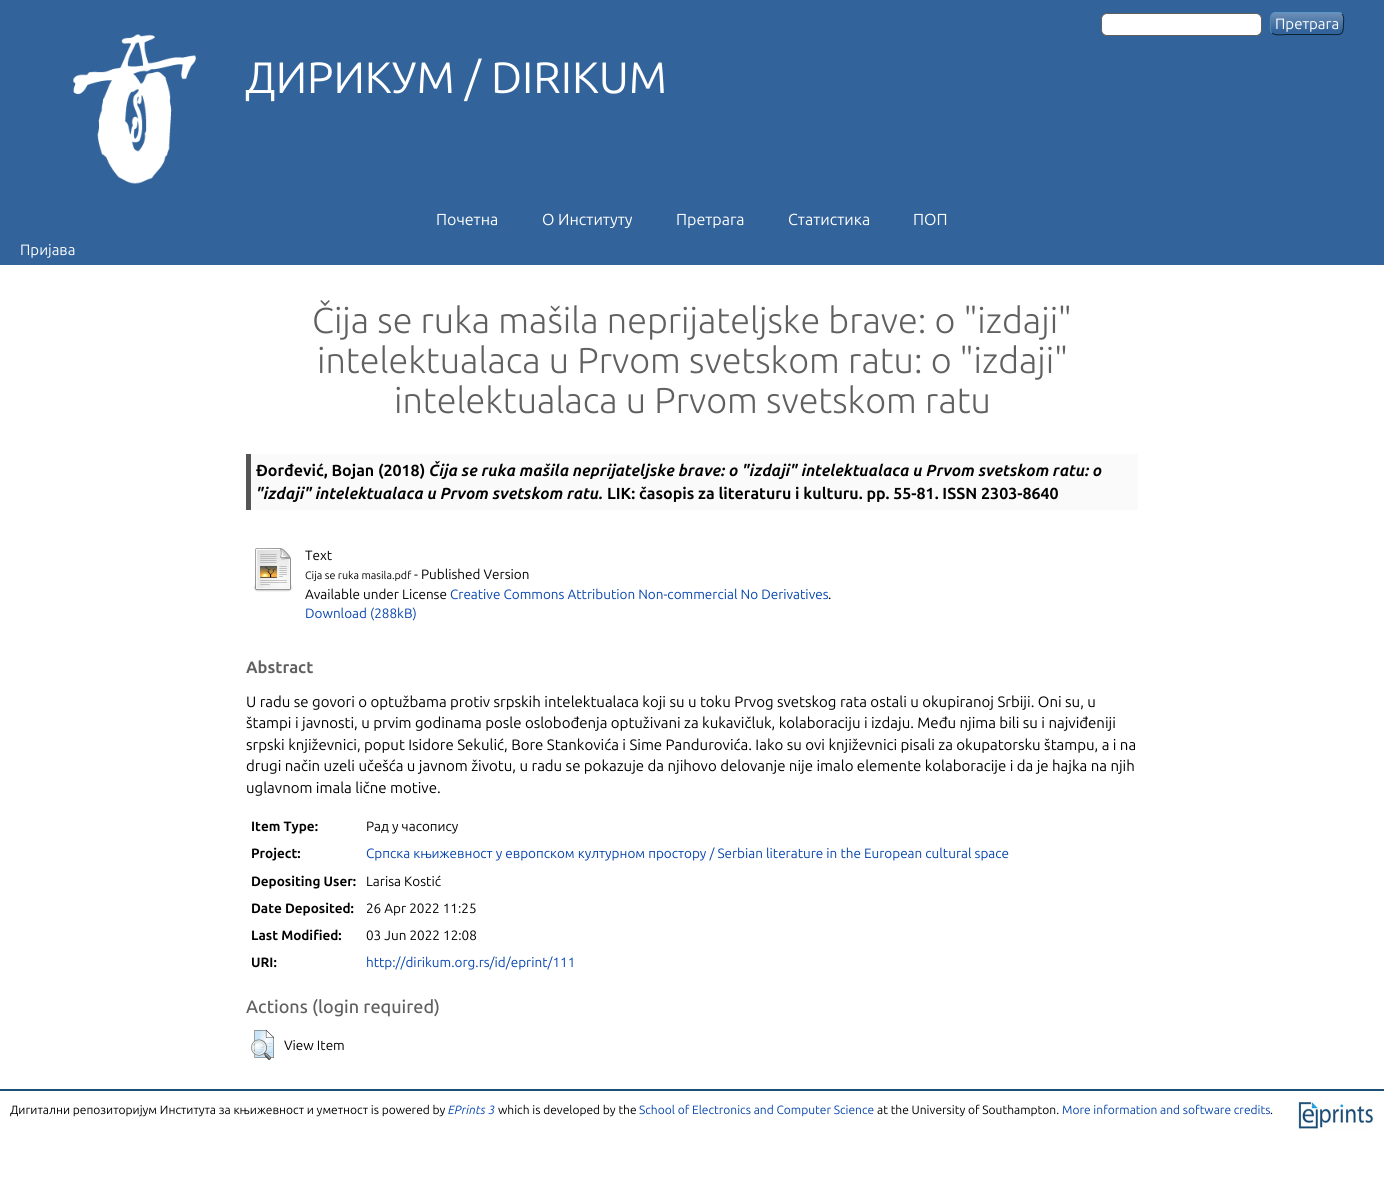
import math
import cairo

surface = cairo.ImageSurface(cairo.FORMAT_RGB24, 1384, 1183)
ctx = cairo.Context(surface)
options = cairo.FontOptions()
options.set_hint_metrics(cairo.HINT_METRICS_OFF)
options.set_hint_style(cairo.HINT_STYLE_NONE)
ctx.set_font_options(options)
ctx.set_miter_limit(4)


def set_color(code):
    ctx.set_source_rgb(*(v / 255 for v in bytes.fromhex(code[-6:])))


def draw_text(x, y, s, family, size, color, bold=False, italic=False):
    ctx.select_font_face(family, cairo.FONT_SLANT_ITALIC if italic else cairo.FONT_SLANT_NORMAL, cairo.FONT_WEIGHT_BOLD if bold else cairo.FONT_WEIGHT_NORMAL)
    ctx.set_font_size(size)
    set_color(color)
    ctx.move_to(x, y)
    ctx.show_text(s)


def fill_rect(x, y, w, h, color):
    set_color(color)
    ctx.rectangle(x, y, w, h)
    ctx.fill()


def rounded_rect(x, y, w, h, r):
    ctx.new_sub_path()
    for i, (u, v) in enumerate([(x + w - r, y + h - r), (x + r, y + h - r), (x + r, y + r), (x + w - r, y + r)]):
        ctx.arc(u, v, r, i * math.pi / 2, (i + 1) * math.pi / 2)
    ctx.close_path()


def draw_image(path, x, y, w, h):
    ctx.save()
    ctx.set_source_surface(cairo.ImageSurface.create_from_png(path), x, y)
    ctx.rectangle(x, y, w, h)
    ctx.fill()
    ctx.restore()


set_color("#ffffff")
ctx.paint()
fill_rect(0, 0, 1384, 265, "#32639a")
set_color("#ffffff")
rounded_rect(1101.5, 13.5, 160, 22, 5.5)
ctx.fill_preserve()
set_color("#606060")
ctx.set_line_width(1)
ctx.stroke()
draw_image("assets/img1.png", 1270, 12, 74, 18)
ctx.new_path()
ctx.move_to(1272, 14)
ctx.curve_to(1273, 13, 1274.5, 12.5, 1276, 12.5)
ctx.line_to(1338, 12.5)
ctx.curve_to(1339.5, 12.5, 1341, 13, 1342, 14)
set_color("#5b97c7")
ctx.stroke()
ctx.new_path()
ctx.move_to(1342, 14)
ctx.curve_to(1344.5, 16.5, 1343.5, 20.5, 1343.5, 23.5)
ctx.curve_to(1343.5, 36.5, 1341, 34.5, 1327.5, 34.5)
ctx.line_to(1286.5, 34.5)
ctx.curve_to(1284, 34.5, 1275.5, 36, 1272, 33)
set_color("#0d2131")
ctx.stroke()
ctx.new_path()
ctx.move_to(1272, 33)
ctx.curve_to(1269.5, 30.5, 1270.5, 26.5, 1270.5, 23.5)
ctx.curve_to(1270.5, 20.5, 1269.5, 16.5, 1272, 14)
set_color("#5287b3")
ctx.stroke()
draw_text(1275, 29, "Претрага", "Ubuntu", 15, "#ffffff")
draw_image("assets/img2.png", 73, 34, 123, 150)
draw_text(245, 93, "ДИРИКУМ / DIRIKUM", "Ubuntu", 44, "#ffffff")
draw_text(436, 225, "Почетна", "Ubuntu", 16, "#ffffff")
draw_text(542, 225, "О Институту", "Ubuntu", 16, "#ffffff")
draw_text(676, 225, "Претрага", "Ubuntu", 16, "#ffffff")
draw_text(788, 225, "Статистика", "Ubuntu", 16, "#ffffff")
draw_text(913, 225, "ПОП", "Ubuntu", 16, "#ffffff")
draw_text(20, 255, "Пријава", "Ubuntu", 15, "#ffffff")
draw_text(312, 333, "Čija se ruka mašila neprijateljske brave: o \"izdaji\"", "Ubuntu Light", 36, "#606060")
draw_text(317, 373, "intelektualaca u Prvom svetskom ratu: o \"izdaji\"", "Ubuntu Light", 36, "#606060")
draw_text(394, 413, "intelektualaca u Prvom svetskom ratu", "Ubuntu Light", 36, "#606060")
fill_rect(251, 454, 887, 56, "#fafafa")
fill_rect(246, 454, 5, 56, "#555555")
draw_text(256, 476, "Đorđević, Bojan (2018)", "Ubuntu", 16, "#000000", bold=True)
draw_text(429, 476, "Čija se ruka mašila neprijateljske brave: o \"izdaji\" intelektualaca u Prvom svetskom ratu: o", "Ubuntu", 16, "#000000", bold=True, italic=True)
draw_text(256, 499, "\"izdaji\" intelektualaca u Prvom svetskom ratu.", "Ubuntu", 16, "#000000", bold=True, italic=True)
draw_text(607, 499, "LIK: časopis za literaturu i kulturu. pp. 55-81. ISSN 2303-8640", "Ubuntu", 16, "#000000", bold=True)
draw_image("assets/img3.png", 253, 548, 40, 44)
draw_text(305, 560, "Text", "Ubuntu", 13.5, "#000000")
draw_text(305, 579, "Cija se ruka masila.pdf", "Ubuntu", 10.75, "#000000")
draw_text(414, 579, "- Published Version", "Ubuntu", 13.5, "#000000")
draw_text(305, 599, "Available under License", "Ubuntu", 13.5, "#000000")
draw_text(450, 599, "Creative Commons Attribution Non-commercial No Derivatives", "Ubuntu", 13.5, "#0645ad")
draw_text(828, 599, ".", "Ubuntu", 13.5, "#000000")
draw_text(305, 618, "Download (288kB)", "Ubuntu", 13.5, "#0645ad")
draw_text(246, 673, "Abstract", "Ubuntu", 16.5, "#606060", bold=True)
draw_text(246, 707, "U radu se govori o optužbama protiv srpskih intelektualaca koji su u toku Prvog svetskog rata ostali u okupiranoj Srbiji. Oni su, u", "Ubuntu", 15, "#000000")
draw_text(246, 728, "štampi i javnosti, u prvim godinama posle oslobođenja optuživani za kukavičluk, kolaboraciju i izdaju. Među njima bili su i najviđeniji", "Ubuntu", 15, "#000000")
draw_text(246, 750, "srpski književnici, poput Isidore Sekulić, Bore Stankovića i Sime Pandurovića. Iako su ovi književnici pisali za okupatorsku štampu, a i na", "Ubuntu", 15, "#000000")
draw_text(246, 771, "drugi način uzeli učešća u javnom životu, u radu se pokazuje da njihovo delovanje nije imalo elemente kolaboracije i da je hajka na njih", "Ubuntu", 15, "#000000")
draw_text(246, 793, "uglavnom imala lične motive.", "Ubuntu", 15, "#000000")
draw_text(251, 831, "Item Type:", "Ubuntu", 13.5, "#000000", bold=True)
draw_text(366, 831, "Рад у часопису", "Ubuntu", 13.5, "#000000")
draw_text(251, 858, "Project:", "Ubuntu", 13.5, "#000000", bold=True)
draw_text(366, 858, "Српска књижевност у европском културном простору / Serbian literature in the European cultural space", "Ubuntu", 13.5, "#0645ad")
draw_text(251, 886, "Depositing User:", "Ubuntu", 13.5, "#000000", bold=True)
draw_text(366, 886, "Larisa Kostić", "Ubuntu", 13.5, "#000000")
draw_text(251, 913, "Date Deposited:", "Ubuntu", 13.5, "#000000", bold=True)
draw_text(366, 913, "26 Apr 2022 11:25", "Ubuntu", 13.5, "#000000")
draw_text(251, 940, "Last Modified:", "Ubuntu", 13.5, "#000000", bold=True)
draw_text(366, 940, "03 Jun 2022 12:08", "Ubuntu", 13.5, "#000000")
draw_text(251, 967, "URI:", "Ubuntu", 13.5, "#000000", bold=True)
draw_text(366, 967, "http://dirikum.org.rs/id/eprint/111", "Ubuntu", 13.5, "#0645ad")
draw_text(246, 1013, "Actions (login required)", "Ubuntu Medium", 18, "#606060")
draw_image("assets/img4.png", 251, 1030, 23, 30)
draw_text(284, 1050, "View Item", "Ubuntu", 13.5, "#000000")
fill_rect(0, 1089, 1384, 2, "#204f76")
draw_text(10, 1114, "Дигитални репозиторијум Института за књижевност и уметност is powered by", "Ubuntu", 12, "#000000")
draw_text(448, 1114, "EPrints 3", "Ubuntu", 12, "#0645ad", italic=True)
draw_text(498, 1114, "which is developed by the", "Ubuntu", 12, "#000000")
draw_text(639, 1114, "School of Electronics and Computer Science", "Ubuntu", 12, "#0645ad")
draw_text(877, 1114, "at the University of Southampton.", "Ubuntu", 12, "#000000")
draw_text(1062, 1114, "More information and software credits", "Ubuntu", 12, "#0645ad")
draw_text(1270, 1114, ".", "Ubuntu", 12, "#000000")
draw_image("assets/img5.png", 1297, 1102, 76, 28)
surface.write_to_png("output.png")
